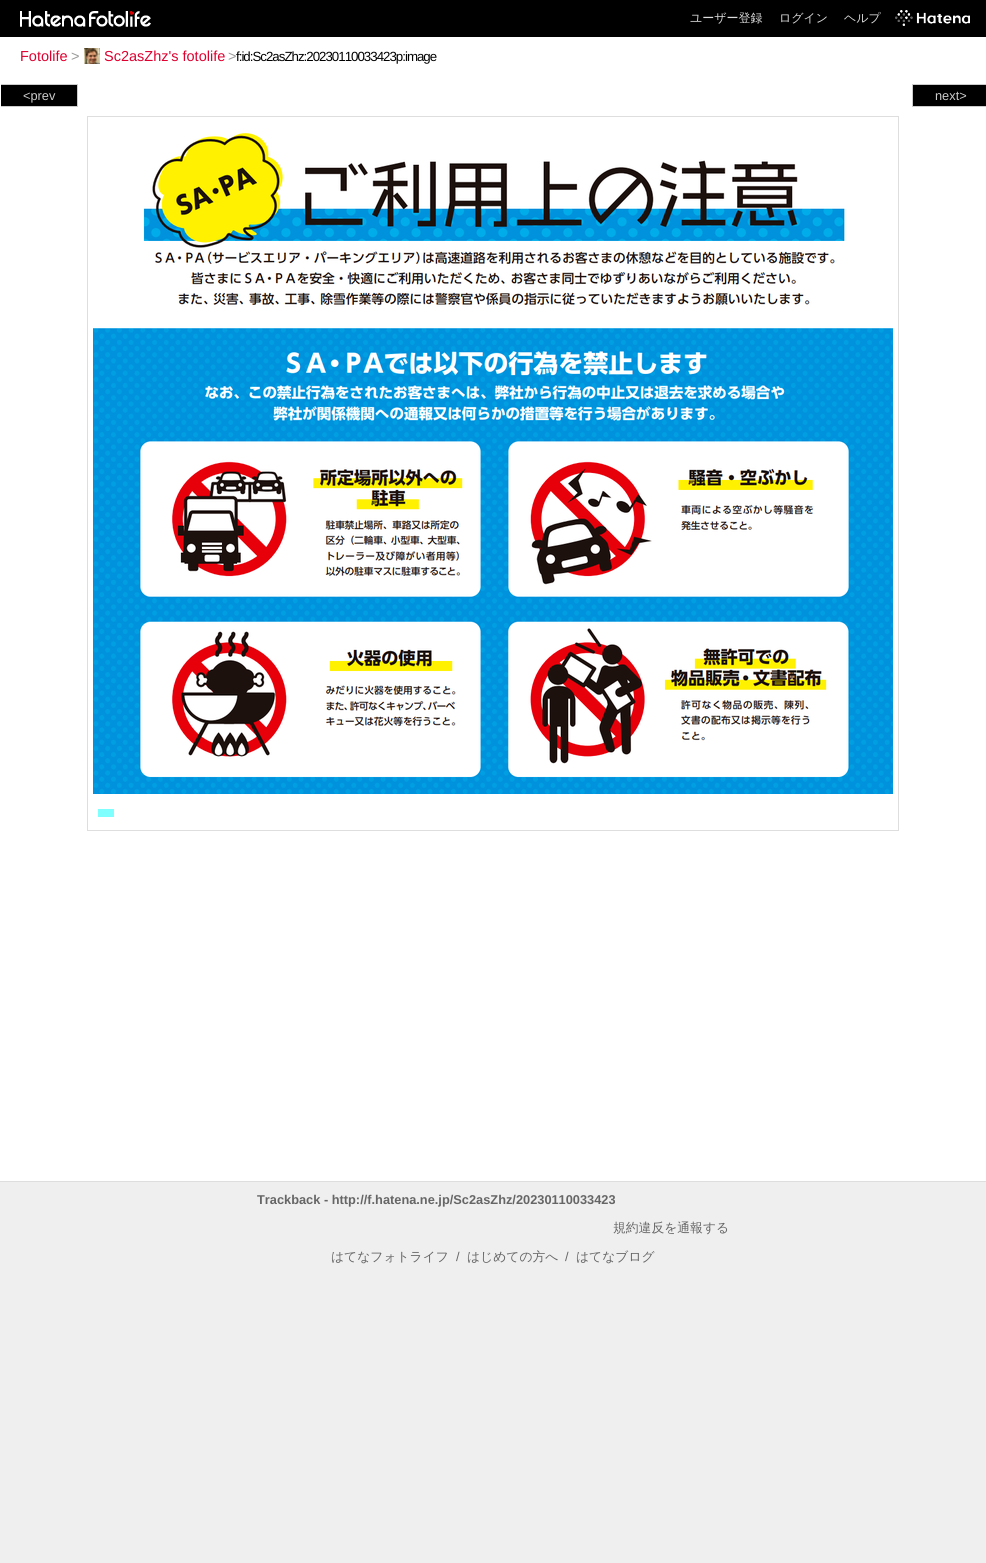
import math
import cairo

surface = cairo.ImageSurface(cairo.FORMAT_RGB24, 986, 1563)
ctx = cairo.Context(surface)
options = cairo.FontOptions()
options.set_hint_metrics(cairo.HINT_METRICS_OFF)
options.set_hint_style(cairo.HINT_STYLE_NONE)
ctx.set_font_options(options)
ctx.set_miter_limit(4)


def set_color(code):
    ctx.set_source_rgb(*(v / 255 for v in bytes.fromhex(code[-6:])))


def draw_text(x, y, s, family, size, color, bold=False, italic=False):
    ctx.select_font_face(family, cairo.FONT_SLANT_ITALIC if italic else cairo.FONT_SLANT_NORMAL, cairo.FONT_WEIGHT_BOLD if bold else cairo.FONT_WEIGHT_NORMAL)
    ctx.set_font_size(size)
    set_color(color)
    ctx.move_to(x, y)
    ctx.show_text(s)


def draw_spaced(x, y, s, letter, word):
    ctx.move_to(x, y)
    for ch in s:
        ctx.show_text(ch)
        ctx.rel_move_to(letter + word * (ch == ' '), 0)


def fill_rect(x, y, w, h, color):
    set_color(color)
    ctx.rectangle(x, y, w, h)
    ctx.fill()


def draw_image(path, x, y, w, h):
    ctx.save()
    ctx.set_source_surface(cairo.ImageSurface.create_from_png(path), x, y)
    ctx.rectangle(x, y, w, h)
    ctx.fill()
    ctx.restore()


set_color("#efefef")
ctx.paint()
fill_rect(0, 0, 986, 37, "#000000")
draw_image("assets/img1.png", 20, 11, 66, 16)
draw_image("assets/img2.png", 89, 11, 62, 16)
draw_text(690, 22, "ユーザー登録", "WenQuanYi Zen Hei Medium", 12, "#dddddd")
draw_text(779, 22, "ログイン", "WenQuanYi Zen Hei Medium", 12, "#dddddd")
draw_text(844, 22, "ヘルプ", "WenQuanYi Zen Hei Medium", 12, "#dddddd")
draw_image("assets/img3.png", 895, 10, 75, 16)
fill_rect(0, 37, 986, 1144, "#ffffff")
draw_text(20, 61, "Fotolife", "Liberation Sans", 14.5, "#de002f")
draw_text(71, 61, ">", "Liberation Sans", 14.5, "#999999")
draw_image("assets/img4.png", 84, 48, 16, 16)
draw_text(104, 61, "Sc2asZhz's fotolife", "Liberation Sans", 14.5, "#de002f")
draw_text(228, 61, ">", "Liberation Sans", 14.5, "#999999")
ctx.set_font_size(13.3)
set_color("#000000")
draw_spaced(236, 61, "f:id:Sc2asZhz:20230110033423p:image", -1, 0)
fill_rect(0, 1181, 986, 1, "#dedede")
fill_rect(1, 85, 76, 21, "#000000")
fill_rect(1, 84, 77, 1, "#cccccc")
fill_rect(77, 84, 1, 23, "#cccccc")
fill_rect(1, 106, 77, 1, "#cccccc")
draw_text(23, 100, "<prev", "Liberation Sans", 12.8, "#cccccc")
fill_rect(913, 85, 73, 21, "#000000")
fill_rect(912, 84, 74, 1, "#cccccc")
fill_rect(912, 106, 74, 1, "#cccccc")
fill_rect(912, 84, 1, 23, "#cccccc")
draw_text(935, 100, "next>", "Liberation Sans", 12.8, "#cccccc")
ctx.rectangle(87.5, 116.5, 811, 714)
set_color("#dedede")
ctx.set_line_width(1)
ctx.stroke()
draw_image("assets/img5.png", 93, 133, 800, 661)
fill_rect(98, 809, 16, 8, "#80ffff")
draw_text(257, 1204, "Trackback - http://f.hatena.ne.jp/Sc2asZhz/20230110033423", "Liberation Sans", 12.8, "#666666", bold=True)
draw_text(613, 1232, "規約違反を通報する", "WenQuanYi Zen Hei Medium", 12.8, "#666666")
draw_text(331, 1261, "はてなフォトライフ", "WenQuanYi Zen Hei Medium", 12.8, "#666666")
draw_text(456, 1261, "/", "Liberation Sans", 12.8, "#666666")
draw_text(467, 1261, "はじめての方へ", "WenQuanYi Zen Hei Medium", 12.8, "#666666")
draw_text(565, 1261, "/", "Liberation Sans", 12.8, "#666666")
draw_text(576, 1261, "はてなブログ", "WenQuanYi Zen Hei Medium", 12.8, "#666666")
surface.write_to_png("output.png")
